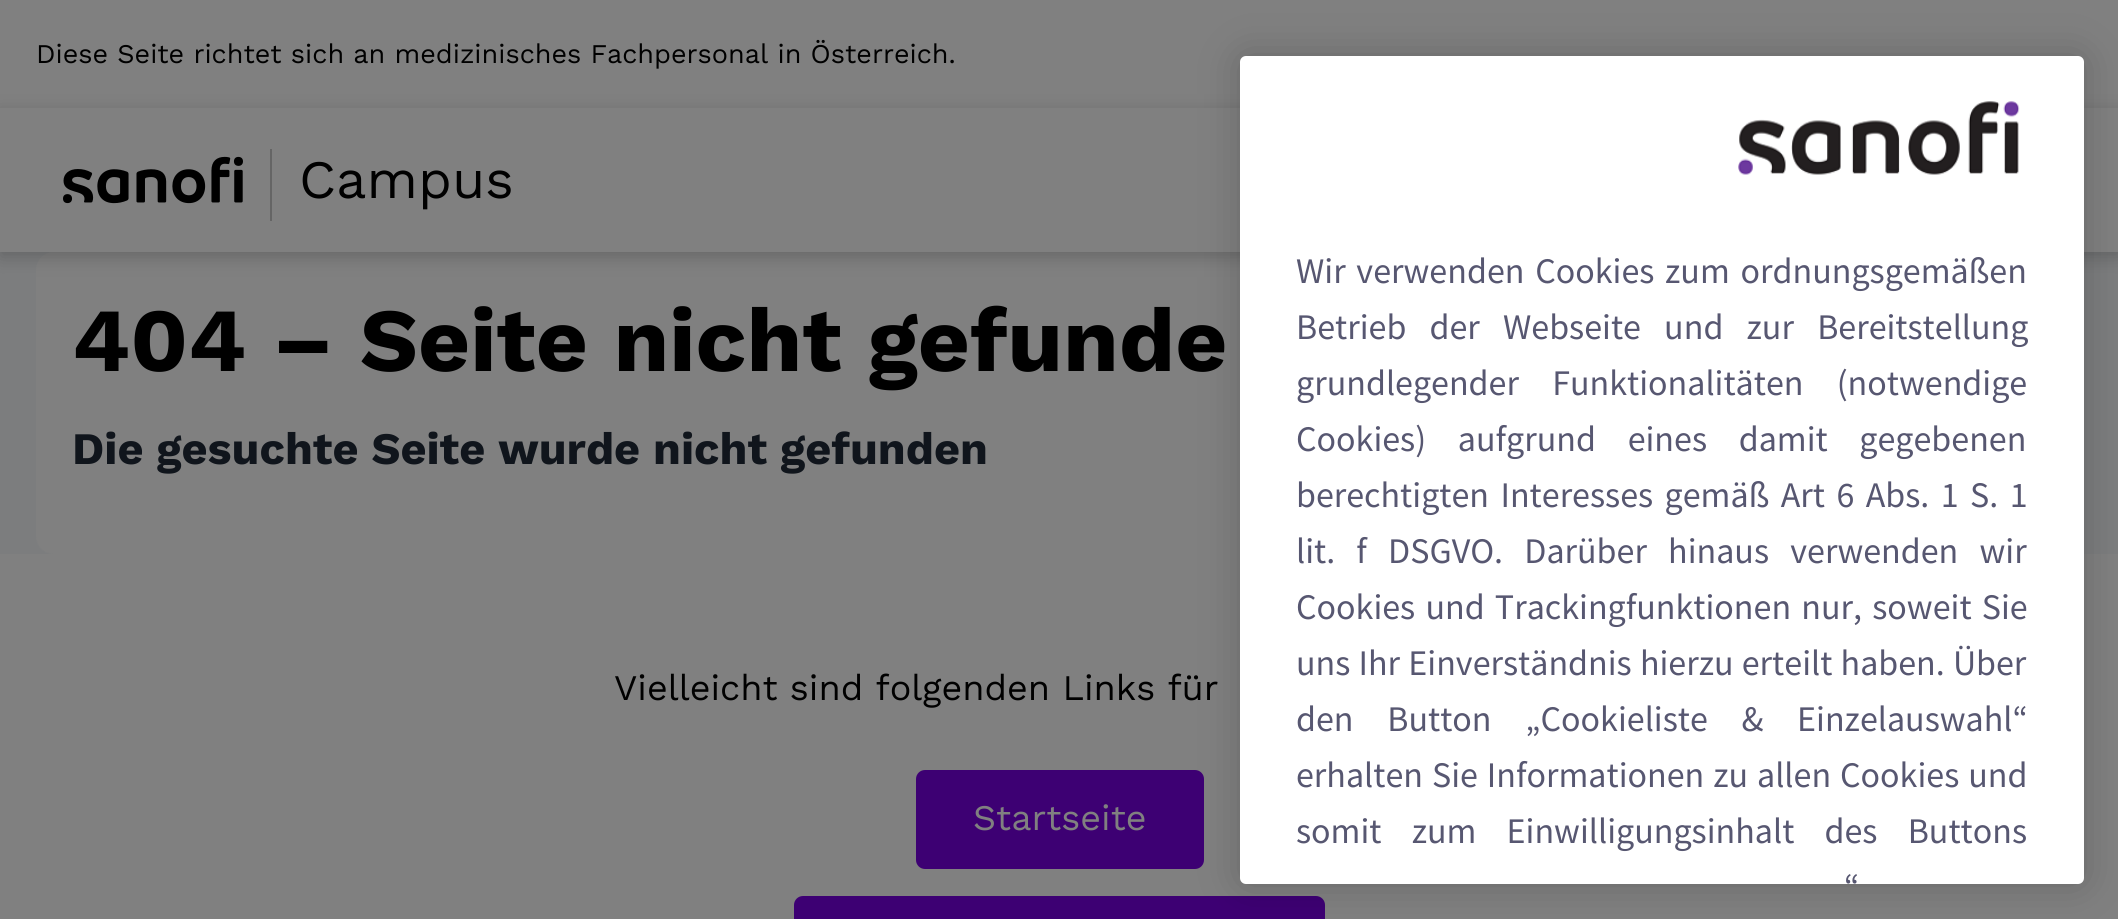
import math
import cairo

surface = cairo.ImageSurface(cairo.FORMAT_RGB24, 2118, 919)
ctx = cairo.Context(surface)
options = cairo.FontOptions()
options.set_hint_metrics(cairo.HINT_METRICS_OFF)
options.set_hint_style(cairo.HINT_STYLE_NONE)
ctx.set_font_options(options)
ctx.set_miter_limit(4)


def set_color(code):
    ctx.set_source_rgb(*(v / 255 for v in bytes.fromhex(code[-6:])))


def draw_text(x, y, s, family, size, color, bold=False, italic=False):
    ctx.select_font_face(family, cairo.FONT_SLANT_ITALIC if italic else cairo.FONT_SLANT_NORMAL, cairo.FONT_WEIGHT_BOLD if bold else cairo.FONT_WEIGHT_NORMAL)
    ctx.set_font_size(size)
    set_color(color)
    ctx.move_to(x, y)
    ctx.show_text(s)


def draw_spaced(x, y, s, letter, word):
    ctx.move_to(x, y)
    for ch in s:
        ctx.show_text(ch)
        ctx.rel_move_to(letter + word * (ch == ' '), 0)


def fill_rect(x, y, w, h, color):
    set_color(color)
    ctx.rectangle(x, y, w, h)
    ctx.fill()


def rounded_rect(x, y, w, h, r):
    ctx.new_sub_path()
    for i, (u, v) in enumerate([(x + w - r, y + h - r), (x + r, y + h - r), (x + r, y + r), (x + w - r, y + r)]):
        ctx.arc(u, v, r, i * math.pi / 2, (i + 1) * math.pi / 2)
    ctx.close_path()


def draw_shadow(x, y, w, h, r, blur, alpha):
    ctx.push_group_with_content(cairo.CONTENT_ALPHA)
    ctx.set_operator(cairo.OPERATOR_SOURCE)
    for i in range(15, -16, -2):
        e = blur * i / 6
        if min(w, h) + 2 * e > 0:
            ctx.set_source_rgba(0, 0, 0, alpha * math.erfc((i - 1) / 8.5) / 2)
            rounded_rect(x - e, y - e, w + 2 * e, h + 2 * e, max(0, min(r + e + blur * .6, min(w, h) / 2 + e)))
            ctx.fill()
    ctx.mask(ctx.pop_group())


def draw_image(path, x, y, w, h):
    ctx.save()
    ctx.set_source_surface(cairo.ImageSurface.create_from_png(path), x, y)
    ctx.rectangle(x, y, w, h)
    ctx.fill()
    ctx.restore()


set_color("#808080")
ctx.paint()
draw_text(36, 63, "Diese Seite richtet sich an medizinisches Fachpersonal in Österreich.", "Work Sans", 27, "#000000")
fill_rect(0, 252, 2118, 302, "#7c7d7e")
set_color("#808080")
rounded_rect(36, 252, 2048, 302, 18)
ctx.fill()
ctx.save()
ctx.set_fill_rule(cairo.FILL_RULE_EVEN_ODD)
ctx.new_path()
ctx.move_to(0, 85)
ctx.line_to(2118, 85)
ctx.line_to(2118, 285)
ctx.line_to(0, 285)
ctx.close_path()
ctx.move_to(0, 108)
ctx.line_to(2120, 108)
ctx.line_to(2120, 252)
ctx.line_to(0, 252)
ctx.close_path()
ctx.clip()
set_color("#000000")
draw_shadow(0, 113, 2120, 144, 0, 9, 0.2)
ctx.restore()
draw_image("assets/img1.png", 63, 156, 180, 48)
fill_rect(270, 149, 2, 72, "#656565")
draw_text(299, 198, "Campus", "Work Sans", 54, "#000000")
draw_text(72, 371, "404 – Seite nicht gefunde", "Work Sans", 90, "#000000", bold=True)
draw_text(72, 464, "Die gesuchte Seite wurde nicht gefunden", "Work Sans", 45, "#10151c", bold=True)
draw_text(614, 700, "Vielleicht sind folgenden Links für", "Work Sans", 36, "#000000")
set_color("#3d0073")
rounded_rect(916, 770, 288, 99, 9)
ctx.fill()
draw_text(973, 830, "Startseite", "Work Sans", 36, "#808080")
set_color("#3d0073")
rounded_rect(794, 896, 531, 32, 9)
ctx.fill()
set_color("#000000")
draw_shadow(1240, 56, 844, 828, 6, 20, 0.2)
set_color("#ffffff")
rounded_rect(1240, 56, 844, 828, 6)
ctx.fill()
draw_image("assets/img2.png", 1738, 101, 282, 74)
ctx.select_font_face("Source Sans Pro")
set_color("#575771")
draw_spaced(1296, 283, "Wir verwenden Cookies zum ordnungsgemäßen", 0, 3.5)
draw_spaced(1296, 339, "Betrieb der Webseite und zur Bereitstellung", 0, 16)
draw_spaced(1296, 395, "grundlegender Funktionalitäten (notwendige", 0, 26)
draw_spaced(1296, 451, "Cookies) aufgrund eines damit gegebenen", 0, 24.5)
draw_spaced(1296, 507, "berechtigten Interesses gemäß Art 6 Abs. 1 S. 1", 0, 4.25)
draw_spaced(1296, 563, "lit. f DSGVO. Darüber hinaus verwenden wir", 0, 14)
draw_spaced(1296, 619, "Cookies und Trackingfunktionen nur, soweit Sie", 0, 3)
draw_spaced(1296, 675, "uns Ihr Einverständnis hierzu erteilt haben. Über", 0, 1)
draw_spaced(1296, 731, "den Button „Cookieliste & Einzelauswahl“", 0, 26.5)
draw_spaced(1296, 787, "erhalten Sie Informationen zu allen Cookies und", 0, 1.75)
draw_spaced(1296, 843, "somit zum Einwilligungsinhalt des Buttons", 0, 23)
draw_spaced(1844, 899, "“", 0, 20)
surface.write_to_png("output.png")
